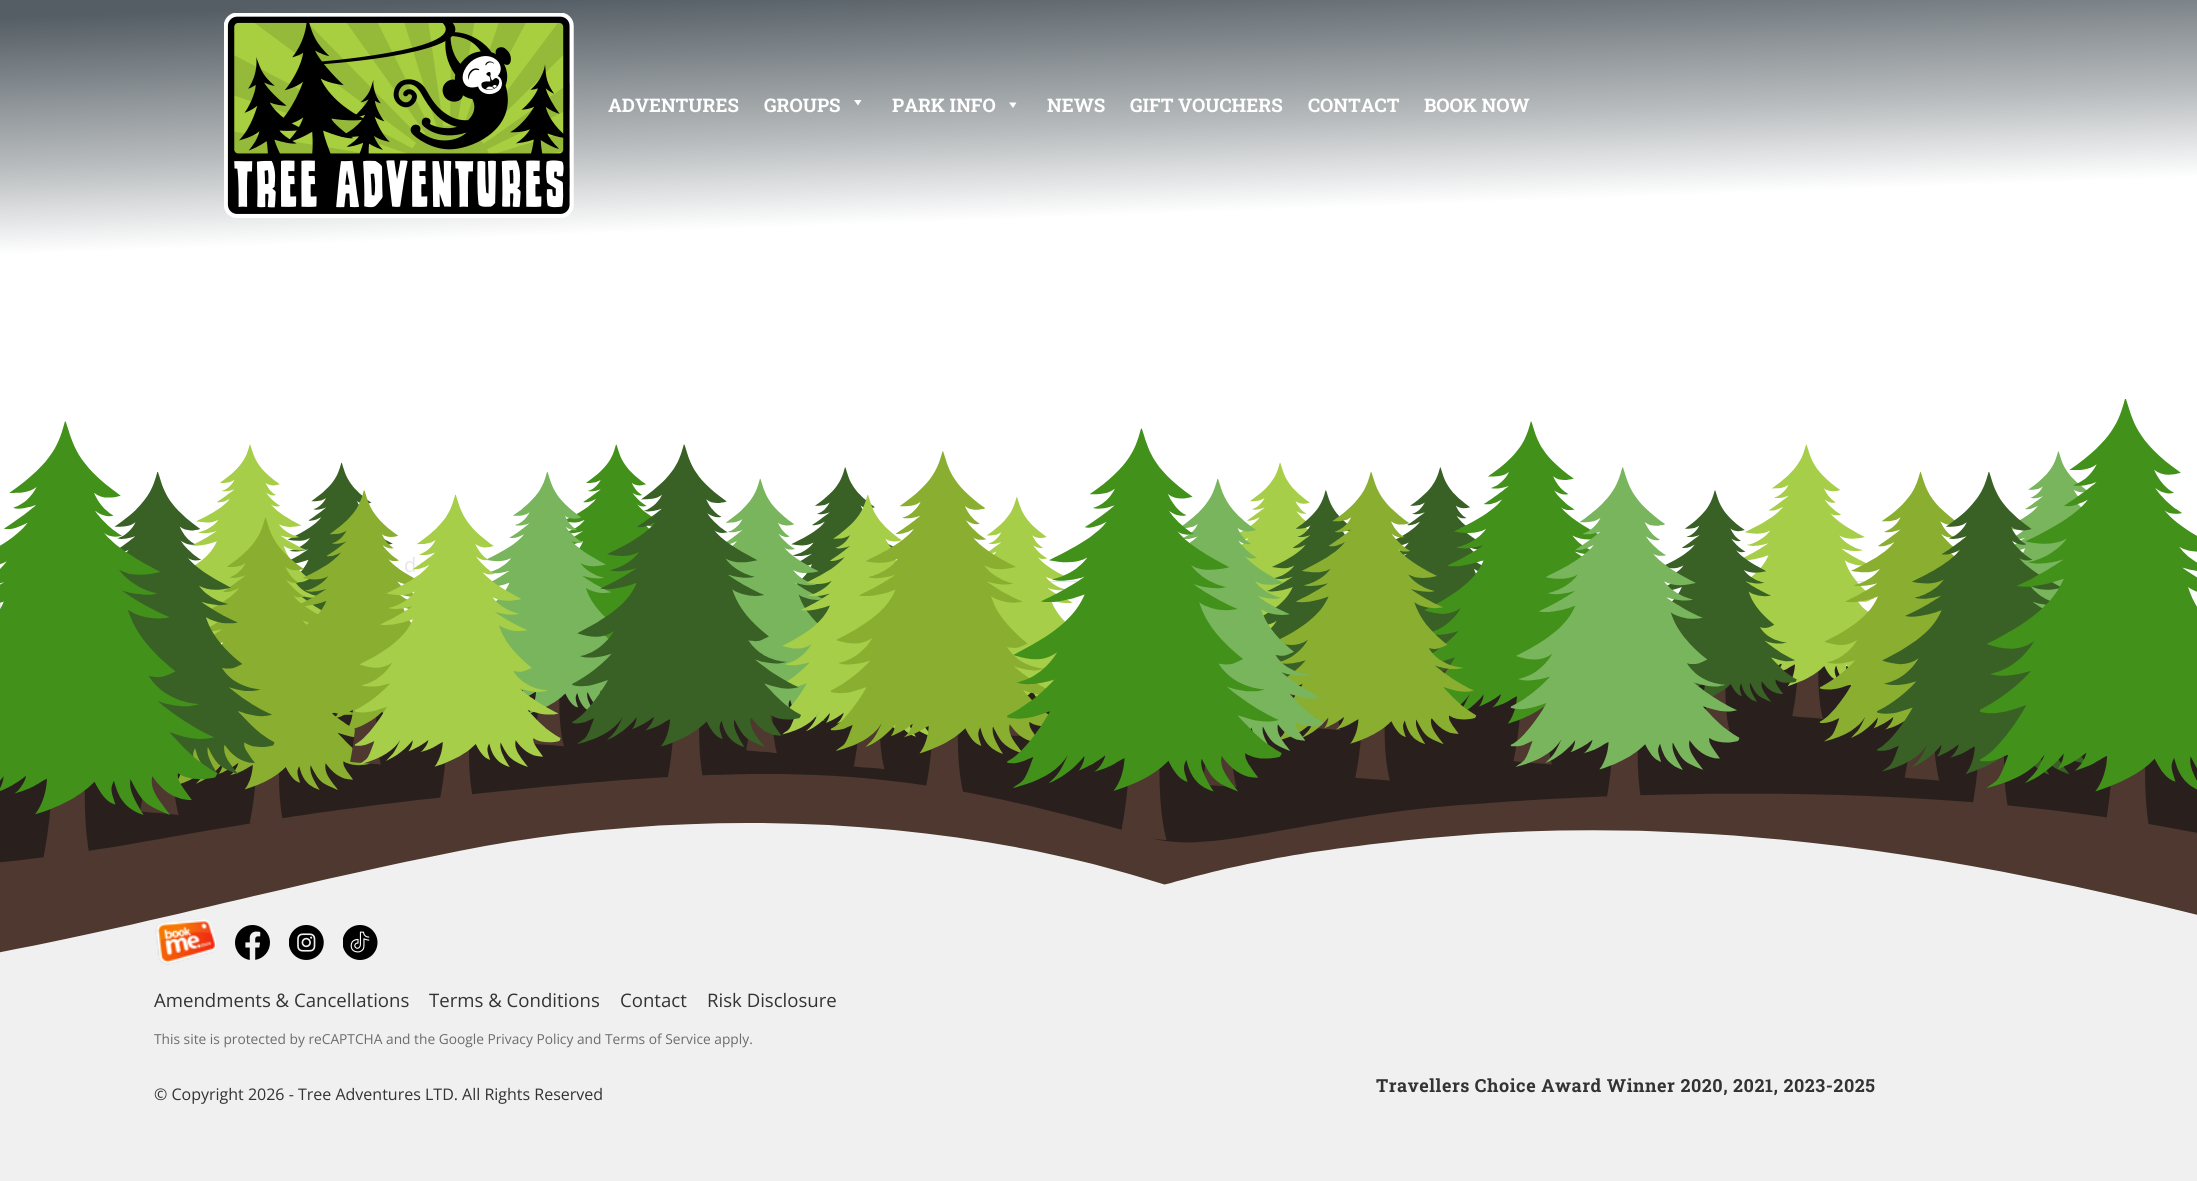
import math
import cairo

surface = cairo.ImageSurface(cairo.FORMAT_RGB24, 2197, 1181)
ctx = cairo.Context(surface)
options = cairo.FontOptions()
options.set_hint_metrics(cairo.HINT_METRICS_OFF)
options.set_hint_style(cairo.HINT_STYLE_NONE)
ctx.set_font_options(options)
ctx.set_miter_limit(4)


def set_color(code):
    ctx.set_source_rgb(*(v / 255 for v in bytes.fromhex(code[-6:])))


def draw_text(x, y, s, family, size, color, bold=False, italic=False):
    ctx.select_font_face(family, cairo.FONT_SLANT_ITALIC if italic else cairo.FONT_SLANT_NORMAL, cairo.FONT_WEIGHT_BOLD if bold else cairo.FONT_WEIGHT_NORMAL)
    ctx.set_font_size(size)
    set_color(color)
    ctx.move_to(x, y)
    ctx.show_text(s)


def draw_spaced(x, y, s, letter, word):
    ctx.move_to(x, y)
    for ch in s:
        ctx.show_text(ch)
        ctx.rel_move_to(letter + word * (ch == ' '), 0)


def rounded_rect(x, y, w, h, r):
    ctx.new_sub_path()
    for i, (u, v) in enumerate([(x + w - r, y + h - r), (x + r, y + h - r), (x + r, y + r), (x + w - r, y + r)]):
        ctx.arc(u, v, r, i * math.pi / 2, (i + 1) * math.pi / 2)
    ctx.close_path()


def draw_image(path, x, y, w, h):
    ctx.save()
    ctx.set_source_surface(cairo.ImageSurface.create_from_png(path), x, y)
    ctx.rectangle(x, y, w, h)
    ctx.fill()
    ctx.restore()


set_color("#ffffff")
ctx.paint()
gradient = cairo.LinearGradient(1301, -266, 1322, 327)
gradient.add_color_stop_rgba(0.4, 0.333, 0.369, 0.396, 1)
gradient.add_color_stop_rgba(0.65, 0.718, 0.733, 0.741, 1)
gradient.add_color_stop_rgba(0.8, 1, 1, 1, 1)
ctx.set_source(gradient)
ctx.new_path()
ctx.move_to(-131, -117)
ctx.line_to(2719, -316)
ctx.line_to(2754, 178)
ctx.line_to(-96, 377)
ctx.close_path()
ctx.fill()
draw_image("assets/img1.png", 224, 13, 350, 205)
draw_text(608, 112, "ADVENTURES", "Roboto Slab", 18.75, "#ffffff", bold=True)
draw_text(764, 112, "GROUPS", "Roboto Slab", 18.75, "#ffffff", bold=True)
ctx.new_path()
ctx.move_to(861.5, 100)
ctx.line_to(858, 105.5)
ctx.line_to(854, 100)
ctx.close_path()
ctx.fill()
draw_text(892, 112, "PARK INFO", "Roboto Slab", 18.75, "#ffffff", bold=True)
ctx.new_path()
ctx.move_to(1016.5, 102.5)
ctx.line_to(1013, 108)
ctx.line_to(1009, 102.5)
ctx.close_path()
ctx.fill()
draw_text(1047, 112, "NEWS", "Roboto Slab", 18.75, "#ffffff", bold=True)
draw_text(1130, 112, "GIFT VOUCHERS", "Roboto Slab", 18.75, "#ffffff", bold=True)
draw_text(1308, 112, "CONTACT", "Roboto Slab", 18.75, "#ffffff", bold=True)
draw_text(1424, 112, "BOOK NOW", "Roboto Slab", 18.75, "#ffffff", bold=True)
draw_text(404, 572, "d", "Open Sans", 20, "#e6e6e8")
rounded_rect(0.5, 581.5, 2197, 51, 3.5)
ctx.set_line_width(1)
ctx.stroke()
draw_image("assets/img2.png", 0, 399, 2197, 782)
draw_image("assets/img3.png", 155, 919, 61, 46)
draw_image("assets/img4.png", 235, 925, 35, 35)
draw_image("assets/img5.png", 289, 925, 35, 35)
draw_image("assets/img6.png", 343, 925, 35, 35)
draw_text(154, 1007, "Amendments & Cancellations", "Open Sans", 18.6, "#333333")
draw_text(429, 1007, "Terms & Conditions", "Open Sans", 18.6, "#333333")
draw_text(620, 1007, "Contact", "Open Sans", 18.6, "#333333")
draw_text(707, 1007, "Risk Disclosure", "Open Sans", 18.6, "#333333")
draw_text(154, 1044, "This site is protected by reCAPTCHA and the Google Privacy Policy and Terms of Service apply.", "Open Sans", 13.75, "#6c6c6c")
draw_text(154, 1100, "© Copyright 2026 - Tree Adventures LTD. All Rights Reserved", "Open Sans", 16, "#333333")
ctx.select_font_face("Roboto Slab", cairo.FONT_SLANT_NORMAL, cairo.FONT_WEIGHT_BOLD)
ctx.set_font_size(18)
draw_spaced(1376, 1092, "Travellers Choice Award Winner 2020, 2021, 2023-2025", 0.55, 0)
surface.write_to_png("output.png")
